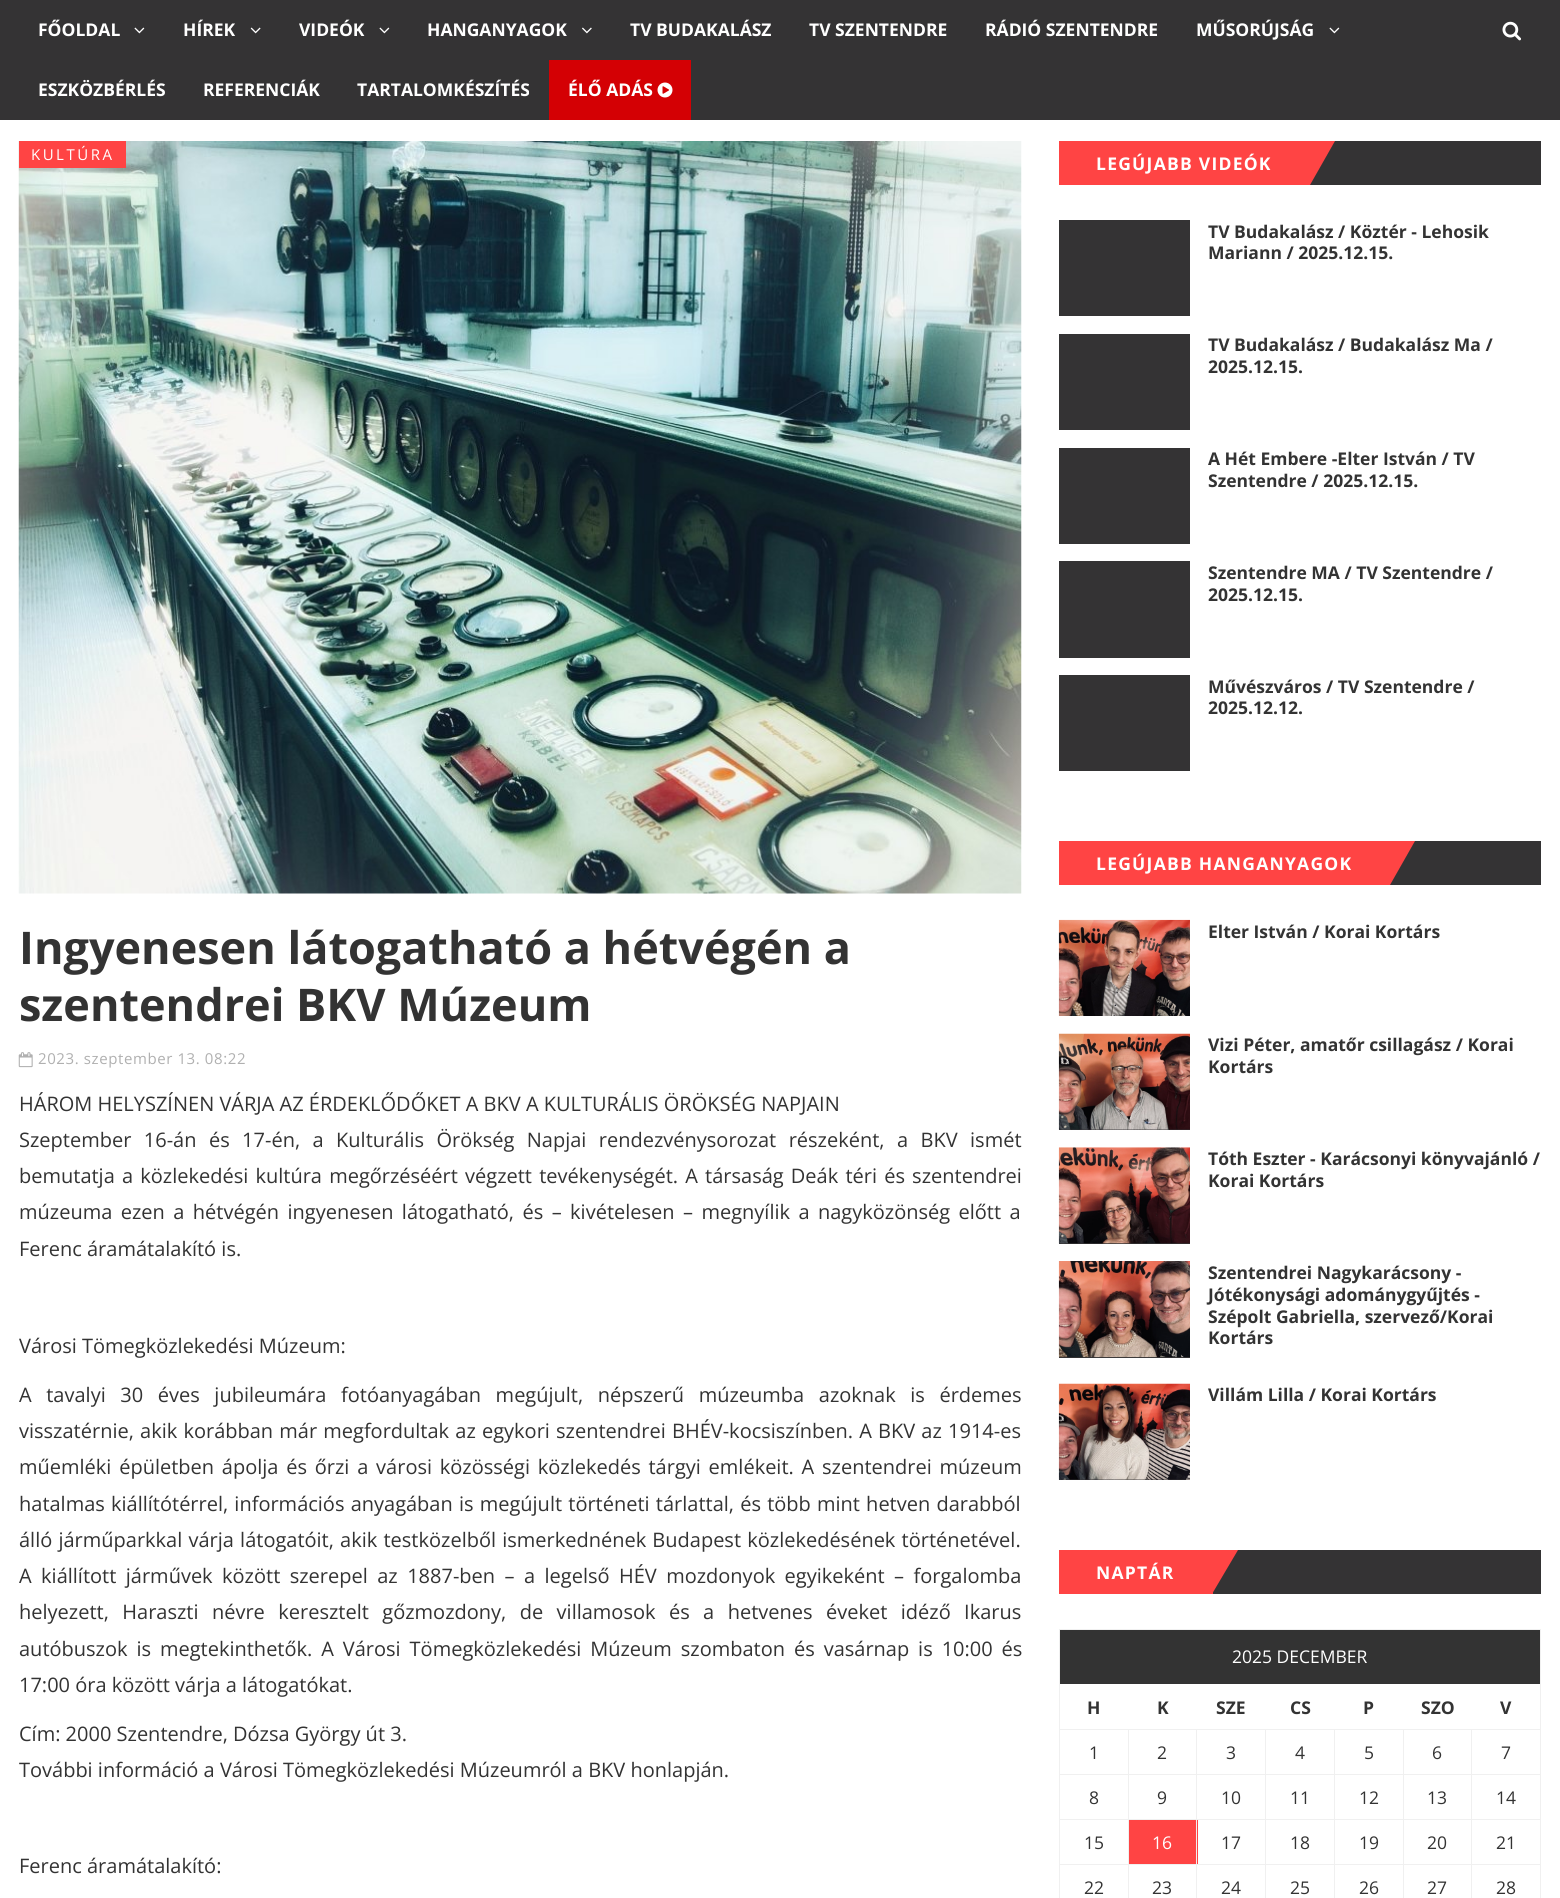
import math
import cairo

surface = cairo.ImageSurface(cairo.FORMAT_RGB24, 1560, 1898)
ctx = cairo.Context(surface)
options = cairo.FontOptions()
options.set_hint_metrics(cairo.HINT_METRICS_OFF)
options.set_hint_style(cairo.HINT_STYLE_NONE)
ctx.set_font_options(options)
ctx.set_miter_limit(4)


def set_color(code):
    ctx.set_source_rgb(*(v / 255 for v in bytes.fromhex(code[-6:])))


def draw_text(x, y, s, family, size, color, bold=False, italic=False):
    ctx.select_font_face(family, cairo.FONT_SLANT_ITALIC if italic else cairo.FONT_SLANT_NORMAL, cairo.FONT_WEIGHT_BOLD if bold else cairo.FONT_WEIGHT_NORMAL)
    ctx.set_font_size(size)
    set_color(color)
    ctx.move_to(x, y)
    ctx.show_text(s)


def draw_spaced(x, y, s, letter, word):
    ctx.move_to(x, y)
    for ch in s:
        ctx.show_text(ch)
        ctx.rel_move_to(letter + word * (ch == ' '), 0)


def fill_rect(x, y, w, h, color):
    set_color(color)
    ctx.rectangle(x, y, w, h)
    ctx.fill()


def draw_image(path, x, y, w, h):
    ctx.save()
    ctx.set_source_surface(cairo.ImageSurface.create_from_png(path), x, y)
    ctx.rectangle(x, y, w, h)
    ctx.fill()
    ctx.restore()


set_color("#ffffff")
ctx.paint()
fill_rect(0, 0, 1560, 120, "#343334")
draw_text(38, 36, "FŐOLDAL", "Open Sans", 17.5, "#ffffff", bold=True)
draw_image("assets/img1.png", 134, 27, 11, 7)
draw_text(183, 36, "HÍREK", "Open Sans", 17.5, "#ffffff", bold=True)
draw_image("assets/img2.png", 250, 27, 11, 7)
draw_text(299, 36, "VIDEÓK", "Open Sans", 17.5, "#ffffff", bold=True)
draw_image("assets/img1.png", 379, 27, 11, 7)
draw_text(427, 36, "HANGANYAGOK", "Open Sans", 17.5, "#ffffff", bold=True)
draw_image("assets/img3.png", 582, 27, 10, 7)
draw_text(630, 36, "TV BUDAKALÁSZ", "Open Sans", 17.5, "#ffffff", bold=True)
draw_text(809, 36, "TV SZENTENDRE", "Open Sans", 17.5, "#ffffff", bold=True)
draw_text(985, 36, "RÁDIÓ SZENTENDRE", "Open Sans", 17.5, "#ffffff", bold=True)
draw_text(1196, 36, "MŰSORÚJSÁG", "Open Sans", 17.5, "#ffffff", bold=True)
draw_image("assets/img1.png", 1329, 27, 11, 7)
draw_text(38, 96, "ESZKÖZBÉRLÉS", "Open Sans", 17.5, "#ffffff", bold=True)
draw_text(203, 96, "REFERENCIÁK", "Open Sans", 17.5, "#ffffff", bold=True)
draw_text(357, 96, "TARTALOMKÉSZÍTÉS", "Open Sans", 17.5, "#ffffff", bold=True)
fill_rect(549, 60, 142, 60, "#d40004")
draw_text(568, 96, "ÉLŐ ADÁS", "Open Sans", 17.5, "#ffffff", bold=True)
draw_image("assets/img4.png", 657, 82, 16, 16)
draw_image("assets/img5.png", 1502, 21, 19, 20)
draw_image("assets/img6.png", 18, 141, 1004, 753)
fill_rect(19, 141, 107, 27, "#ff4444")
ctx.select_font_face("Open Sans")
ctx.set_font_size(15)
set_color("#ffffff")
draw_spaced(31, 160, "KULTÚRA", 2.5, 0)
draw_text(19, 964, "Ingyenesen látogatható a hétvégén a", "Open Sans", 45, "#333333", bold=True)
draw_text(19, 1021, "szentendrei BKV Múzeum", "Open Sans", 45, "#333333", bold=True)
draw_image("assets/img7.png", 18, 1052, 15, 16)
ctx.select_font_face("Open Sans")
ctx.set_font_size(15)
set_color("#b0b0b0")
draw_spaced(38, 1064, "2023. szeptember 13. 08:22", 0.6, 0)
draw_text(19, 1111, "HÁROM HELYSZÍNEN VÁRJA AZ ÉRDEKLŐDŐKET A BKV A KULTURÁLIS ÖRÖKSÉG NAPJAIN", "Open Sans", 20, "#333333")
draw_spaced(19, 1147, "Szeptember 16-án és 17-én, a Kulturális Örökség Napjai rendezvénysorozat részeként, a BKV ismét", 0, 7.25)
draw_spaced(19, 1183, "bemutatja a közlekedési kultúra megőrzéséért végzett tevékenységét. A társaság Deák téri és szentendrei", 0, 2)
draw_spaced(19, 1219, "múzeuma ezen a hétvégén ingyenesen látogatható, és – kivételesen – megnyílik a nagyközönség előtt a", 0, 3.25)
draw_text(19, 1256, "Ferenc áramátalakító is.", "Open Sans", 20, "#333333")
draw_text(19, 1353, "Városi Tömegközlekedési Múzeum:", "Open Sans", 20, "#333333")
draw_spaced(19, 1402, "A tavalyi 30 éves jubileumára fotóanyagában megújult, népszerű múzeumba azoknak is érdemes", 0, 9.4)
draw_spaced(19, 1438, "visszatérnie, akik korábban már megfordultak az egykori szentendrei BHÉV-kocsiszínben. A BKV az 1914-es", 0, 1)
draw_spaced(19, 1474, "műemléki épületben ápolja és őrzi a városi közösségi közlekedés tárgyi emlékeit. A szentendrei múzeum", 0, 2.6)
draw_spaced(19, 1511, "hatalmas kiállítótérrel, információs anyagában is megújult történeti tárlattal, és több mint hetven darabból", 0, 1)
draw_spaced(19, 1547, "álló járműparkkal várja látogatóit, akik testközelből ismerkednének Budapest közlekedésének történetével.", 0, 1)
draw_spaced(19, 1583, "A kiállított járművek között szerepel az 1887-ben – a legelső HÉV mozdonyok egyikeként – forgalomba", 0, 4.25)
draw_spaced(19, 1619, "helyezett, Haraszti névre keresztelt gőzmozdony, de villamosok és a hetvenes éveket idéző Ikarus", 0, 8.25)
draw_spaced(19, 1656, "autóbuszok is megtekinthetők. A Városi Tömegközlekedési Múzeum szombaton és vasárnap is 10:00 és", 0, 3.75)
draw_text(19, 1692, "17:00 óra között várja a látogatókat.", "Open Sans", 20, "#333333")
draw_text(19, 1741, "Cím: 2000 Szentendre, Dózsa György út 3.", "Open Sans", 20, "#333333")
draw_text(19, 1777, "További információ a Városi Tömegközlekedési Múzeumról a BKV honlapján.", "Open Sans", 20, "#333333")
draw_text(19, 1873, "Ferenc áramátalakító:", "Open Sans", 20, "#333333")
fill_rect(1310, 141, 231, 44, "#343334")
fill_rect(1059, 141, 251, 44, "#ff4444")
ctx.select_font_face("Open Sans", cairo.FONT_SLANT_NORMAL, cairo.FONT_WEIGHT_BOLD)
ctx.set_font_size(17.5)
set_color("#ffffff")
draw_spaced(1096, 170, "LEGÚJABB VIDEÓK", 1.25, 0)
set_color("#ff4444")
ctx.new_path()
ctx.move_to(1310, 141)
ctx.line_to(1335, 141)
ctx.line_to(1310, 185)
ctx.close_path()
ctx.fill()
fill_rect(1059, 220, 131, 96, "#343334")
draw_text(1208, 238, "TV Budakalász / Köztér - Lehosik", "Open Sans", 17.5, "#333333", bold=True)
draw_text(1208, 259, "Mariann / 2025.12.15.", "Open Sans", 17.5, "#333333", bold=True)
fill_rect(1059, 334, 131, 96, "#343334")
draw_text(1208, 351, "TV Budakalász / Budakalász Ma /", "Open Sans", 17.5, "#333333", bold=True)
draw_text(1208, 373, "2025.12.15.", "Open Sans", 17.5, "#333333", bold=True)
fill_rect(1059, 448, 131, 96, "#343334")
draw_text(1208, 465, "A Hét Embere -Elter István / TV", "Open Sans", 17.5, "#333333", bold=True)
draw_text(1208, 487, "Szentendre / 2025.12.15.", "Open Sans", 17.5, "#333333", bold=True)
fill_rect(1059, 561, 131, 97, "#343334")
draw_text(1208, 579, "Szentendre MA / TV Szentendre /", "Open Sans", 17.5, "#333333", bold=True)
draw_text(1208, 601, "2025.12.15.", "Open Sans", 17.5, "#333333", bold=True)
fill_rect(1059, 675, 131, 96, "#343334")
draw_text(1208, 693, "Művészváros / TV Szentendre /", "Open Sans", 17.5, "#333333", bold=True)
draw_text(1208, 714, "2025.12.12.", "Open Sans", 17.5, "#333333", bold=True)
fill_rect(1390, 841, 151, 44, "#343334")
fill_rect(1059, 841, 331, 44, "#ff4444")
set_color("#ffffff")
draw_spaced(1096, 870, "LEGÚJABB HANGANYAGOK", 1.25, 0)
set_color("#ff4444")
ctx.new_path()
ctx.move_to(1390, 841)
ctx.line_to(1415, 841)
ctx.line_to(1390, 885)
ctx.close_path()
ctx.fill()
draw_image("assets/img8.png", 1058, 919, 132, 97)
draw_text(1208, 938, "Elter István / Korai Kortárs", "Open Sans", 17.5, "#333333", bold=True)
fill_rect(1059, 1129, 131, 1, "#343334")
draw_image("assets/img9.png", 1058, 1033, 132, 97)
draw_text(1208, 1051, "Vizi Péter, amatőr csillagász / Korai", "Open Sans", 17.5, "#333333", bold=True)
draw_text(1208, 1073, "Kortárs", "Open Sans", 17.5, "#333333", bold=True)
fill_rect(1059, 1243, 131, 1, "#343334")
draw_image("assets/img10.png", 1058, 1147, 132, 97)
draw_text(1208, 1165, "Tóth Eszter - Karácsonyi könyvajánló /", "Open Sans", 17.5, "#333333", bold=True)
draw_text(1208, 1187, "Korai Kortárs", "Open Sans", 17.5, "#333333", bold=True)
fill_rect(1059, 1357, 131, 1, "#343334")
draw_image("assets/img11.png", 1058, 1261, 132, 97)
draw_text(1208, 1279, "Szentendrei Nagykarácsony -", "Open Sans", 17.5, "#333333", bold=True)
draw_text(1208, 1301, "Jótékonysági adománygyűjtés -", "Open Sans", 17.5, "#333333", bold=True)
draw_text(1208, 1323, "Szépolt Gabriella, szervező/Korai", "Open Sans", 17.5, "#333333", bold=True)
draw_text(1208, 1344, "Kortárs", "Open Sans", 17.5, "#333333", bold=True)
fill_rect(1059, 1479, 131, 1, "#343334")
draw_image("assets/img12.png", 1058, 1383, 132, 97)
draw_text(1208, 1401, "Villám Lilla / Korai Kortárs", "Open Sans", 17.5, "#333333", bold=True)
fill_rect(1213, 1550, 328, 44, "#343334")
fill_rect(1059, 1550, 154, 44, "#ff4444")
set_color("#ffffff")
draw_spaced(1096, 1579, "NAPTÁR", 1.25, 0)
set_color("#ff4444")
ctx.new_path()
ctx.move_to(1212, 1550)
ctx.line_to(1238, 1550)
ctx.line_to(1212, 1594)
ctx.close_path()
ctx.fill()
fill_rect(1059, 1629, 482, 1, "#f0f0f0")
fill_rect(1540, 1629, 1, 269, "#f0f0f0")
fill_rect(1059, 1629, 1, 269, "#f0f0f0")
fill_rect(1060, 1630, 480, 54, "#333333")
draw_text(1232, 1663, "2025 DECEMBER", "Open Sans", 17.5, "#ffffff")
draw_text(1087, 1714, "H", "Open Sans", 17.5, "#333333", bold=True)
draw_text(1157, 1714, "K", "Open Sans", 17.5, "#333333", bold=True)
draw_text(1216, 1714, "SZE", "Open Sans", 17.5, "#333333", bold=True)
draw_text(1290, 1714, "CS", "Open Sans", 17.5, "#333333", bold=True)
draw_text(1363, 1714, "P", "Open Sans", 17.5, "#333333", bold=True)
draw_text(1421, 1714, "SZO", "Open Sans", 17.5, "#333333", bold=True)
draw_text(1500, 1714, "V", "Open Sans", 17.5, "#333333", bold=True)
fill_rect(1471, 1729, 70, 1, "#f0f0f0")
fill_rect(1471, 1774, 70, 1, "#f0f0f0")
fill_rect(1471, 1819, 70, 1, "#f0f0f0")
fill_rect(1471, 1864, 70, 1, "#f0f0f0")
fill_rect(1471, 1864, 1, 34, "#f0f0f0")
fill_rect(1403, 1864, 70, 1, "#f0f0f0")
fill_rect(1471, 1819, 1, 46, "#f0f0f0")
fill_rect(1403, 1819, 70, 1, "#f0f0f0")
fill_rect(1471, 1774, 1, 46, "#f0f0f0")
fill_rect(1403, 1774, 70, 1, "#f0f0f0")
fill_rect(1471, 1729, 1, 46, "#f0f0f0")
fill_rect(1403, 1729, 70, 1, "#f0f0f0")
fill_rect(1403, 1864, 1, 34, "#f0f0f0")
fill_rect(1334, 1864, 70, 1, "#f0f0f0")
fill_rect(1403, 1819, 1, 46, "#f0f0f0")
fill_rect(1334, 1819, 70, 1, "#f0f0f0")
fill_rect(1403, 1774, 1, 46, "#f0f0f0")
fill_rect(1334, 1774, 70, 1, "#f0f0f0")
fill_rect(1403, 1729, 1, 46, "#f0f0f0")
fill_rect(1334, 1729, 70, 1, "#f0f0f0")
fill_rect(1334, 1864, 1, 34, "#f0f0f0")
fill_rect(1265, 1864, 70, 1, "#f0f0f0")
fill_rect(1334, 1819, 1, 46, "#f0f0f0")
fill_rect(1265, 1819, 70, 1, "#f0f0f0")
fill_rect(1334, 1774, 1, 46, "#f0f0f0")
fill_rect(1265, 1774, 70, 1, "#f0f0f0")
fill_rect(1334, 1729, 1, 46, "#f0f0f0")
fill_rect(1265, 1729, 70, 1, "#f0f0f0")
fill_rect(1265, 1864, 1, 34, "#f0f0f0")
fill_rect(1196, 1864, 70, 1, "#f0f0f0")
fill_rect(1265, 1819, 1, 46, "#f0f0f0")
fill_rect(1196, 1819, 70, 1, "#f0f0f0")
fill_rect(1265, 1774, 1, 46, "#f0f0f0")
fill_rect(1196, 1774, 70, 1, "#f0f0f0")
fill_rect(1265, 1729, 1, 46, "#f0f0f0")
fill_rect(1196, 1729, 70, 1, "#f0f0f0")
fill_rect(1129, 1820, 69, 44, "#ff4444")
fill_rect(1196, 1864, 1, 34, "#f0f0f0")
fill_rect(1128, 1864, 70, 1, "#f0f0f0")
fill_rect(1196, 1819, 1, 46, "#f0f0f0")
fill_rect(1128, 1819, 70, 1, "#f0f0f0")
fill_rect(1196, 1774, 1, 46, "#f0f0f0")
fill_rect(1128, 1774, 70, 1, "#f0f0f0")
fill_rect(1196, 1729, 1, 46, "#f0f0f0")
fill_rect(1128, 1729, 70, 1, "#f0f0f0")
fill_rect(1128, 1864, 1, 34, "#f0f0f0")
fill_rect(1059, 1864, 70, 1, "#f0f0f0")
fill_rect(1128, 1819, 1, 46, "#f0f0f0")
fill_rect(1059, 1819, 70, 1, "#f0f0f0")
fill_rect(1128, 1774, 1, 46, "#f0f0f0")
fill_rect(1059, 1774, 70, 1, "#f0f0f0")
fill_rect(1128, 1729, 1, 46, "#f0f0f0")
fill_rect(1059, 1729, 70, 1, "#f0f0f0")
draw_text(1089, 1759, "1", "Open Sans", 17.5, "#333333")
draw_text(1157, 1759, "2", "Open Sans", 17.5, "#333333")
draw_text(1226, 1759, "3", "Open Sans", 17.5, "#333333")
draw_text(1295, 1759, "4", "Open Sans", 17.5, "#333333")
draw_text(1364, 1759, "5", "Open Sans", 17.5, "#333333")
draw_text(1432, 1759, "6", "Open Sans", 17.5, "#333333")
draw_text(1501, 1759, "7", "Open Sans", 17.5, "#333333")
draw_text(1089, 1804, "8", "Open Sans", 17.5, "#333333")
draw_text(1157, 1804, "9", "Open Sans", 17.5, "#333333")
draw_text(1221, 1804, "10", "Open Sans", 17.5, "#333333")
draw_text(1290, 1804, "11", "Open Sans", 17.5, "#333333")
draw_text(1359, 1804, "12", "Open Sans", 17.5, "#333333")
draw_text(1427, 1804, "13", "Open Sans", 17.5, "#333333")
draw_text(1496, 1804, "14", "Open Sans", 17.5, "#333333")
draw_text(1084, 1849, "15", "Open Sans", 17.5, "#333333")
draw_text(1152, 1849, "16", "Open Sans", 17.5, "#ffffff")
draw_text(1221, 1849, "17", "Open Sans", 17.5, "#333333")
draw_text(1290, 1849, "18", "Open Sans", 17.5, "#333333")
draw_text(1359, 1849, "19", "Open Sans", 17.5, "#333333")
draw_text(1427, 1849, "20", "Open Sans", 17.5, "#333333")
draw_text(1496, 1849, "21", "Open Sans", 17.5, "#333333")
draw_text(1084, 1894, "22", "Open Sans", 17.5, "#333333")
draw_text(1152, 1894, "23", "Open Sans", 17.5, "#333333")
draw_text(1221, 1894, "24", "Open Sans", 17.5, "#333333")
draw_text(1290, 1894, "25", "Open Sans", 17.5, "#333333")
draw_text(1359, 1894, "26", "Open Sans", 17.5, "#333333")
draw_text(1427, 1894, "27", "Open Sans", 17.5, "#333333")
draw_text(1496, 1894, "28", "Open Sans", 17.5, "#333333")
surface.write_to_png("output.png")
